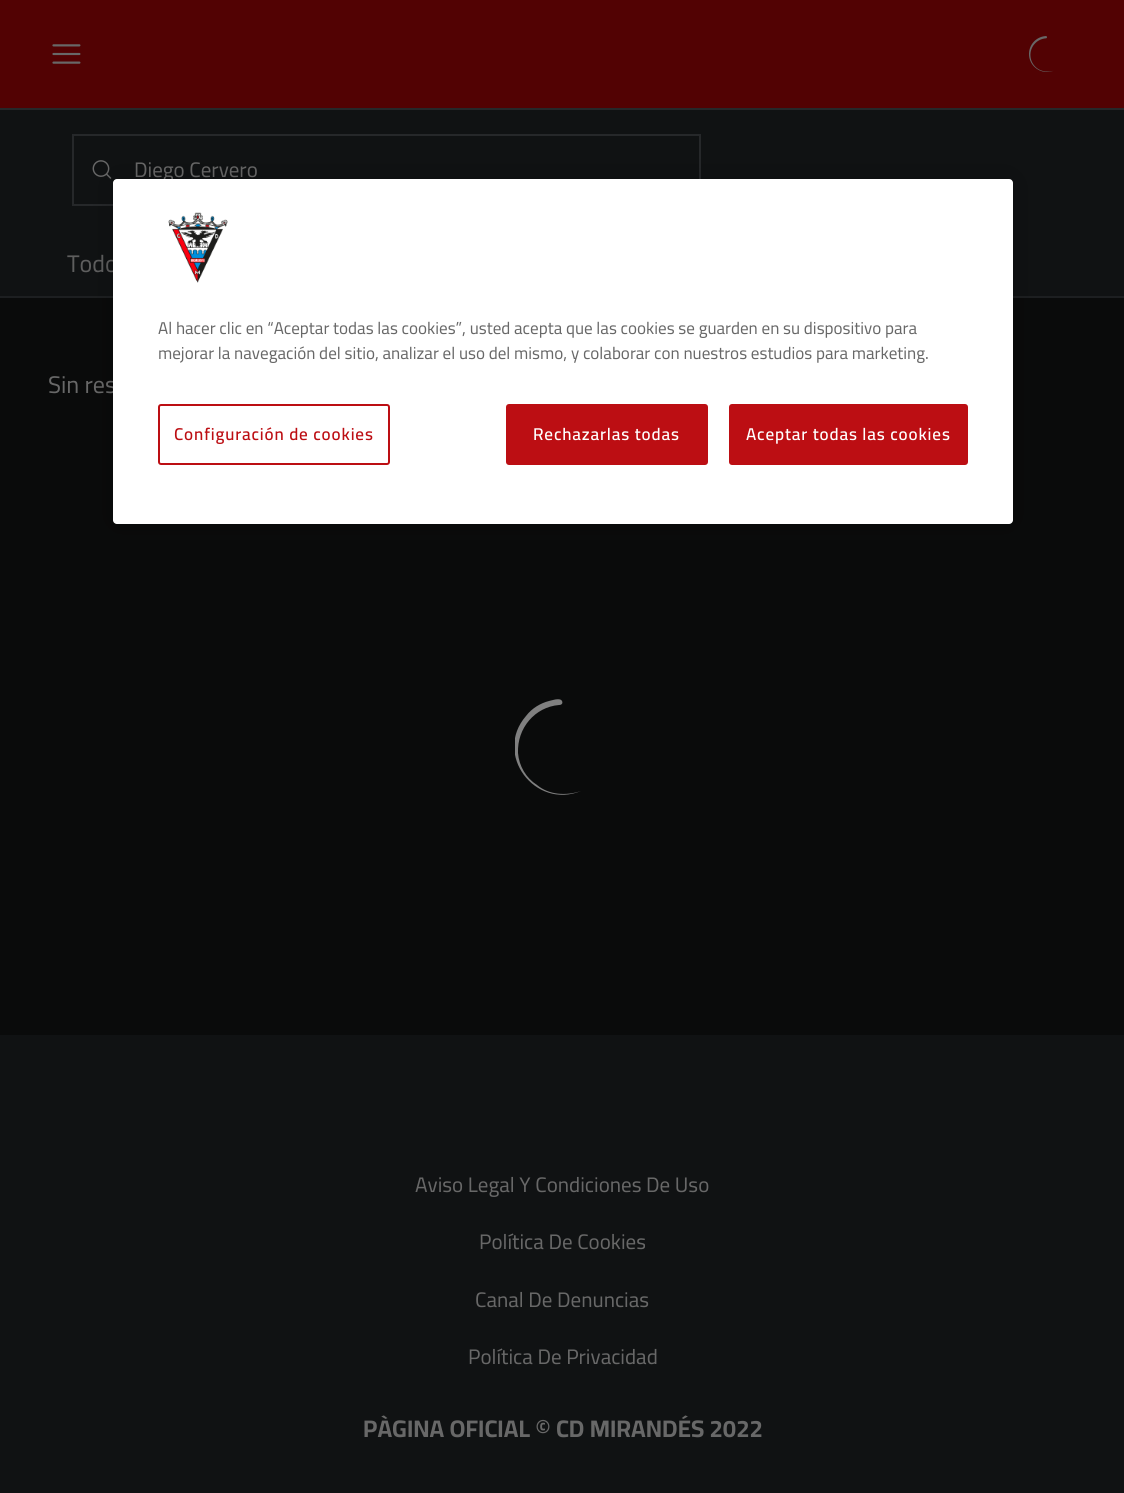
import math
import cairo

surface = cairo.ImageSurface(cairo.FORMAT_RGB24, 1124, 1493)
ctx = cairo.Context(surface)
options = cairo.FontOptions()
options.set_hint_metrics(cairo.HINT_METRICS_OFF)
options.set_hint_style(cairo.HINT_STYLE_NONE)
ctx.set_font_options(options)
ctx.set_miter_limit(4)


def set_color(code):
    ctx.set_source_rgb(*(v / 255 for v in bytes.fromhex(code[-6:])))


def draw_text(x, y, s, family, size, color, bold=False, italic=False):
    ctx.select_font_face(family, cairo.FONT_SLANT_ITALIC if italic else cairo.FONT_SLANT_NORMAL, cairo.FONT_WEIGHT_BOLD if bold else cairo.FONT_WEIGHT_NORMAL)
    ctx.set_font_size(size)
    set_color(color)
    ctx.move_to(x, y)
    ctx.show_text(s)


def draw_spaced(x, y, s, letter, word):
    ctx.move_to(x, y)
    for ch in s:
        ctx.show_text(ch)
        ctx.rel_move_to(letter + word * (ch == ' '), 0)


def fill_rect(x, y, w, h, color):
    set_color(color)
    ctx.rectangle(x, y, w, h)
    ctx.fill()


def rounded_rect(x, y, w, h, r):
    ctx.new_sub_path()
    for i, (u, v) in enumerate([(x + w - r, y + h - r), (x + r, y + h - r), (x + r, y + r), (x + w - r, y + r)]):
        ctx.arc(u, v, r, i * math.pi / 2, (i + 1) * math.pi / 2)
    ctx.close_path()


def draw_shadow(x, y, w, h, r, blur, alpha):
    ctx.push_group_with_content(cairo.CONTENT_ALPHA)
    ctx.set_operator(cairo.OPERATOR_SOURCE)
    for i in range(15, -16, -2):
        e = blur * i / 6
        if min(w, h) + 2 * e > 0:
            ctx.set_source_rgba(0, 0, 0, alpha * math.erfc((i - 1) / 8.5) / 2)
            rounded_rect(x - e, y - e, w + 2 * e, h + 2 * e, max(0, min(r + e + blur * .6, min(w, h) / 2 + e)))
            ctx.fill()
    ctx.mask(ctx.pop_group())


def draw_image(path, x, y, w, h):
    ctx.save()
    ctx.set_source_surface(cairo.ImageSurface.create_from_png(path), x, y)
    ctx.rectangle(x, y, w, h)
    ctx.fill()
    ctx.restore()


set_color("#0a0b0b")
ctx.paint()
fill_rect(0, 0, 1124, 108, "#520203")
fill_rect(0, 108, 1124, 2, "#26282a")
draw_image("assets/img1.png", 52, 44, 29, 20)
draw_image("assets/img2.png", 1029, 36, 25, 36)
fill_rect(0, 110, 1124, 186, "#101213")
ctx.rectangle(73, 135, 627, 70)
set_color("#26282a")
ctx.stroke()
draw_image("assets/img3.png", 92, 160, 20, 19)
draw_text(134, 177, "Diego Cervero", "Cairo", 21, "#686868")
fill_rect(0, 296, 1124, 2, "#1d1f21")
draw_text(67, 272, "Todo", "Cairo", 24, "#5e5e5e")
draw_text(48, 393, "Sin res", "Cairo", 24, "#686868")
ctx.save()
ctx.rectangle(515, 699, 96, 96)
ctx.clip()
set_color("#808080")
ctx.set_fill_rule(cairo.FILL_RULE_EVEN_ODD)
ctx.new_path()
ctx.move_to(559, 705)
ctx.curve_to(535, 707, 517, 728, 518, 753)
ctx.curve_to(519, 766, 526, 778, 537, 785)
ctx.curve_to(549, 795, 566, 796, 581, 791)
ctx.curve_to(535, 810, 493, 754, 526, 716)
ctx.curve_to(532, 708, 541, 703, 549, 701)
ctx.curve_to(550, 701, 560, 697, 562, 701)
ctx.curve_to(563, 703, 562, 705, 559, 705)
ctx.close_path()
ctx.fill()
ctx.restore()
fill_rect(0, 1035, 1124, 458, "#101213")
draw_text(415, 1192, "Aviso Legal Y Condiciones De Uso", "Cairo", 21, "#686868")
draw_text(479, 1249, "Política De Cookies", "Cairo", 21, "#686868")
draw_text(475, 1307, "Canal De Denuncias", "Cairo", 21, "#686868")
draw_text(468, 1364, "Política De Privacidad", "Cairo", 21, "#686868")
draw_text(363, 1437, "PÀGINA OFICIAL © CD MIRANDÉS 2022", "Cairo", 24, "#686868", bold=True)
set_color("#000000")
draw_shadow(113, 179, 900, 345, 4, 13.5, 0.2)
set_color("#ffffff")
rounded_rect(113, 179, 900, 345, 4)
ctx.fill()
draw_image("assets/img4.png", 168, 212, 60, 71)
draw_text(158, 334, "Al hacer clic en “Aceptar todas las cookies”, usted acepta que las cookies se guarden en su dispositivo para", "Cairo", 17.05, "#686868")
draw_text(158, 359, "mejorar la navegación del sitio, analizar el uso del mismo, y colaborar con nuestros estudios para marketing.", "Cairo", 17.05, "#686868")
rounded_rect(159, 405, 230, 59, 2)
set_color("#bc0e13")
ctx.stroke()
ctx.select_font_face("Cairo SemiBold")
draw_spaced(174, 440, "Configuración de cookies", 0.85, 0)
rounded_rect(507, 405, 200, 59, 2)
ctx.fill_preserve()
ctx.stroke()
set_color("#ffffff")
draw_spaced(533, 440, "Rechazarlas todas", 0.85, 0)
set_color("#bc0e13")
rounded_rect(730, 405, 237, 59, 2)
ctx.fill_preserve()
ctx.stroke()
set_color("#ffffff")
draw_spaced(746, 440, "Aceptar todas las cookies", 0.85, 0)
surface.write_to_png("output.png")
